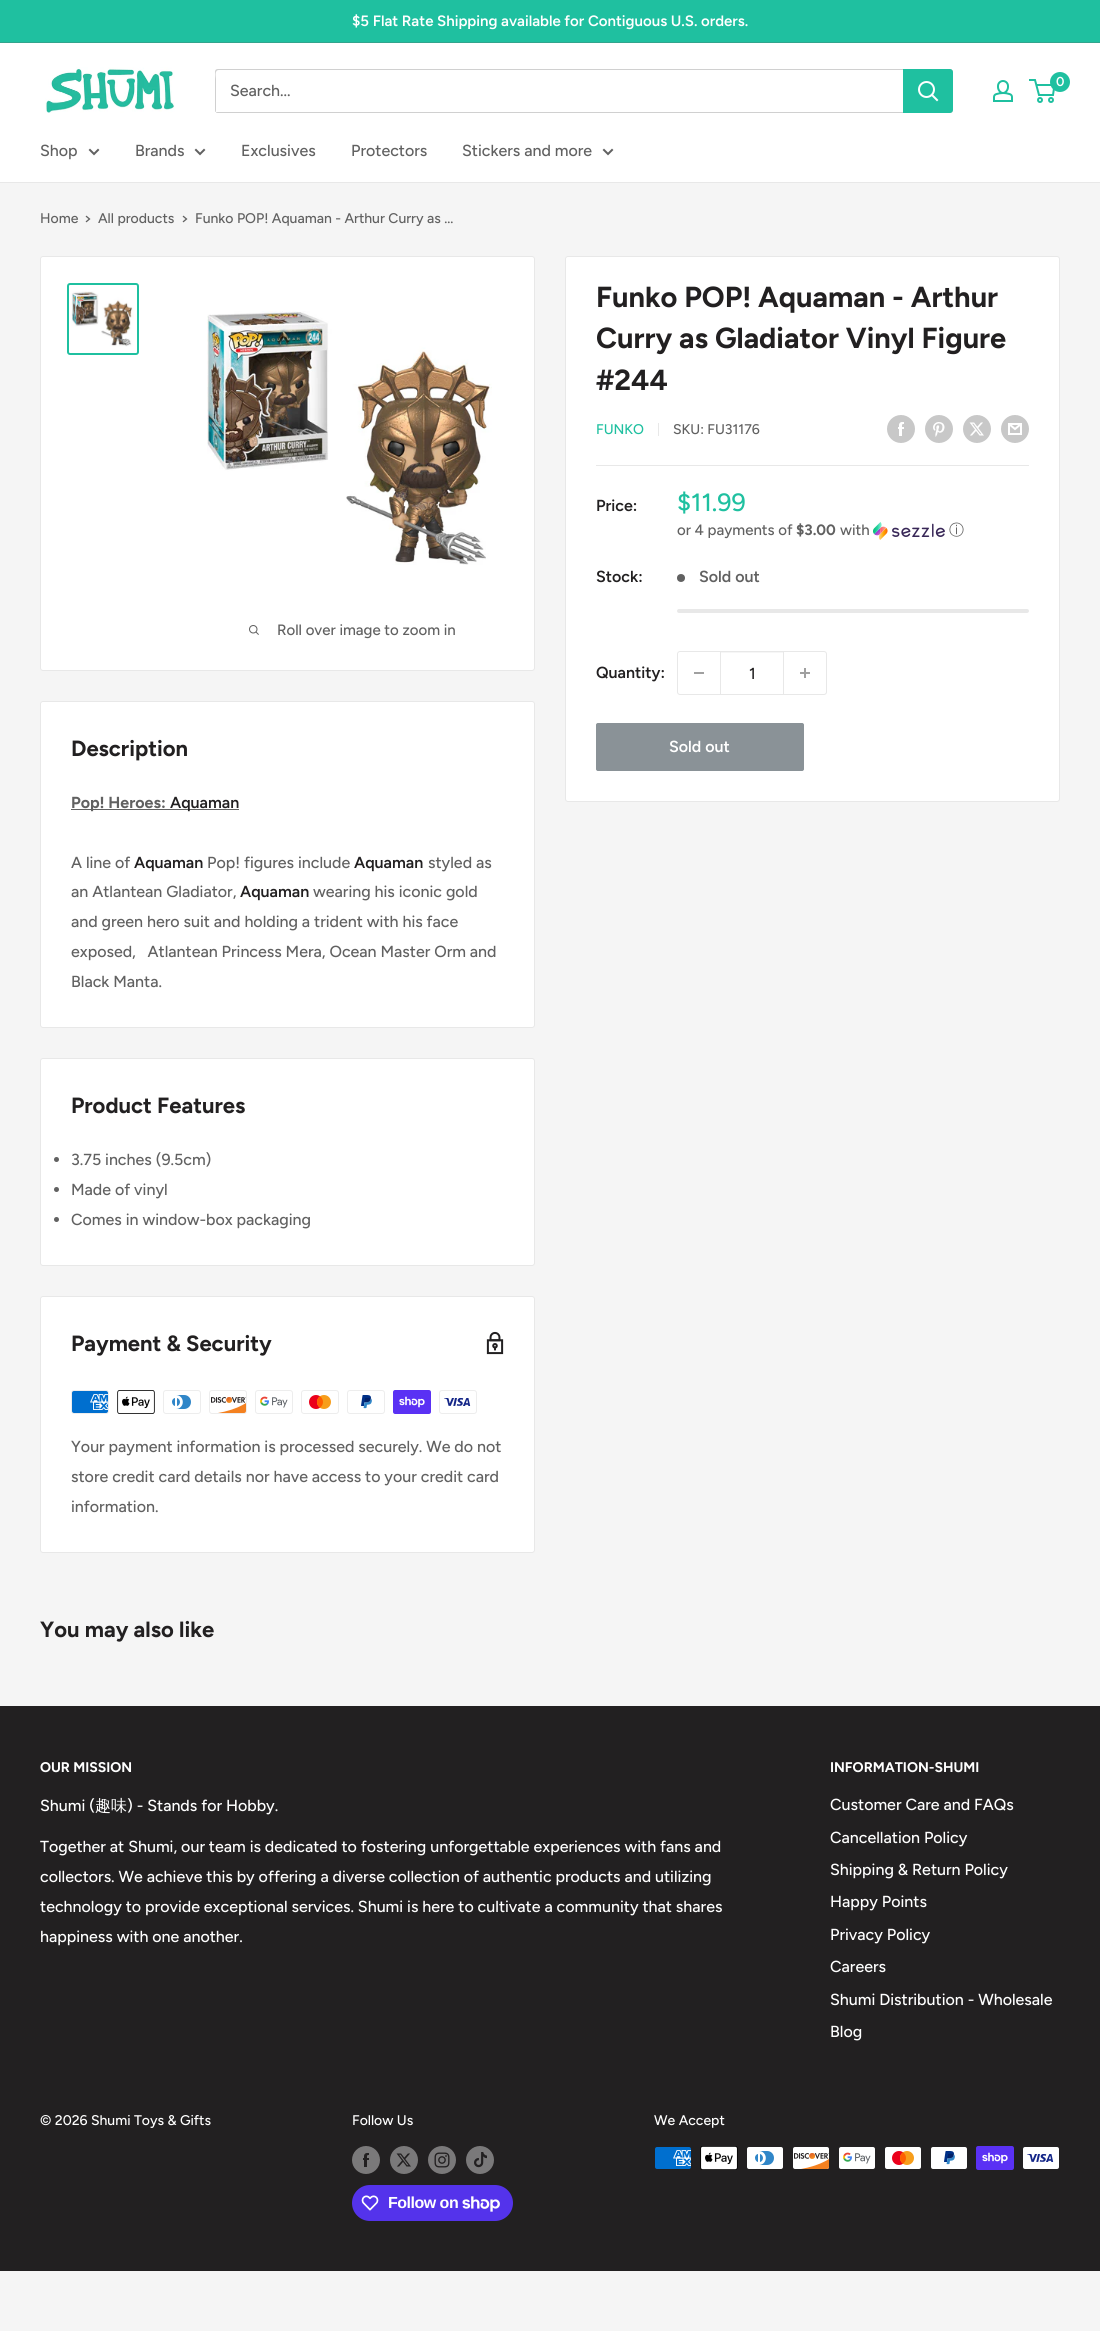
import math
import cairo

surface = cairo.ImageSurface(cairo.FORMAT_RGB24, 1100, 2331)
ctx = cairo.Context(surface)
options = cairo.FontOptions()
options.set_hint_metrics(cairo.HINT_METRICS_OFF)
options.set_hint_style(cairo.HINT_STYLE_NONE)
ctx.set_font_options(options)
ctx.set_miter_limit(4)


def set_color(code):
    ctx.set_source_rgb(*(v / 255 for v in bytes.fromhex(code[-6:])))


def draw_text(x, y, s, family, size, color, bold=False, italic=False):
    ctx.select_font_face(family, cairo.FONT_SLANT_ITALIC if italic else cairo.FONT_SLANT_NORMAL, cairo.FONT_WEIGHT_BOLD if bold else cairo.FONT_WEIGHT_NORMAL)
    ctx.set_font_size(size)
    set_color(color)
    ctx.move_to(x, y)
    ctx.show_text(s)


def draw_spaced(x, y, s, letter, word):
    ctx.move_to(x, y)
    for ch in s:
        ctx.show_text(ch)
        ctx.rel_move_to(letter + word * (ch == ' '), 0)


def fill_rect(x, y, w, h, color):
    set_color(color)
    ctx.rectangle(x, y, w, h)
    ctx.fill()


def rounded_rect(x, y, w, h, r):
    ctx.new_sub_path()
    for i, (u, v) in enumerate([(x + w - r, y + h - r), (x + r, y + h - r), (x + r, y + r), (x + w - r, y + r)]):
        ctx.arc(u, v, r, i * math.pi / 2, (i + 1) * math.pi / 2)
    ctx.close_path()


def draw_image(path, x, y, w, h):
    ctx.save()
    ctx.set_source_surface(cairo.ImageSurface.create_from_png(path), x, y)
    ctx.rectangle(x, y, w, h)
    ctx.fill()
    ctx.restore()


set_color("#f5f5f5")
ctx.paint()
fill_rect(0, 0, 1100, 42, "#1fc0a0")
fill_rect(0, 42, 1100, 1, "#33a48d")
draw_text(352, 26, "$5 Flat Rate Shipping available for Contiguous U.S. orders.", "Figtree SemiBold", 15, "#ffffff")
fill_rect(0, 43, 1100, 139, "#ffffff")
draw_image("assets/img1.png", 45, 67, 130, 46)
draw_image("assets/img2.png", 993, 80, 20, 22)
ctx.arc(1040, 100, 2, 0, 2 * math.pi)
set_color("#1fc0a0")
ctx.stroke()
ctx.arc(1051, 100, 2, 0, 2 * math.pi)
ctx.stroke()
ctx.new_path()
ctx.move_to(1036.5, 85)
ctx.line_to(1054.5, 85)
ctx.line_to(1053, 95)
ctx.line_to(1039, 95)
ctx.line_to(1035, 80)
ctx.line_to(1029, 80)
ctx.stroke()
ctx.arc(1060, 82, 10, 0, 2 * math.pi)
ctx.fill()
draw_text(1056, 86, "0", "Figtree SemiBold", 13, "#ffffff")
set_color("#d0d0d0")
ctx.new_path()
ctx.move_to(216, 112)
ctx.curve_to(216, 113, 217, 113, 218, 113)
ctx.line_to(950, 113)
ctx.curve_to(952, 113, 953, 112, 953, 110)
ctx.line_to(953, 72)
ctx.curve_to(953, 71, 953, 70, 952, 70)
ctx.line_to(952, 103)
ctx.curve_to(952, 105, 954, 112, 949, 112)
ctx.close_path()
ctx.fill()
ctx.new_path()
ctx.move_to(219, 70)
ctx.line_to(952, 70)
ctx.curve_to(952, 69, 951, 69, 950, 69)
ctx.line_to(218, 69)
ctx.curve_to(216, 69, 215, 70, 215, 72)
ctx.line_to(215, 110)
ctx.curve_to(215, 111, 215, 112, 216, 112)
ctx.line_to(216, 79)
ctx.curve_to(216, 77, 214, 70, 219, 70)
ctx.close_path()
ctx.fill()
draw_text(230, 96, "Search...", "Figtree Medium", 16, "#616161")
set_color("#1fc0a0")
ctx.new_path()
ctx.move_to(903, 69)
ctx.line_to(950, 69)
ctx.curve_to(951.5, 69, 953, 70.5, 953, 72)
ctx.line_to(953, 110)
ctx.curve_to(953, 111.5, 951.5, 113, 950, 113)
ctx.line_to(903, 113)
ctx.close_path()
ctx.fill()
ctx.new_path()
ctx.move_to(937, 100)
ctx.line_to(932, 95)
set_color("#ffffff")
ctx.set_line_cap(cairo.LINE_CAP_SQUARE)
ctx.stroke()
ctx.arc(926.5, 89.5, 7.5, 0, 2 * math.pi)
ctx.set_line_cap(cairo.LINE_CAP_BUTT)
ctx.stroke()
fill_rect(0, 182, 1100, 1, "#e8e8e8")
draw_text(40, 156, "Shop", "Figtree Medium", 16, "#616161")
ctx.new_path()
ctx.move_to(98, 150)
ctx.line_to(94, 154)
ctx.line_to(90, 150)
ctx.set_line_cap(cairo.LINE_CAP_SQUARE)
ctx.stroke()
draw_text(135, 156, "Brands", "Figtree Medium", 16, "#616161")
ctx.new_path()
ctx.move_to(204, 150)
ctx.line_to(200, 154)
ctx.line_to(196, 150)
ctx.stroke()
draw_text(241, 156, "Exclusives", "Figtree Medium", 16, "#616161")
draw_text(351, 156, "Protectors", "Figtree Medium", 16, "#616161")
draw_text(462, 156, "Stickers and more", "Figtree Medium", 16, "#616161")
ctx.new_path()
ctx.move_to(612, 150)
ctx.line_to(608, 154)
ctx.line_to(604, 150)
ctx.stroke()
draw_text(40, 223, "Home", "Figtree Medium", 14, "#616161")
ctx.new_path()
ctx.move_to(86.5, 216.5)
ctx.line_to(89.5, 219)
ctx.line_to(86.5, 221.5)
ctx.set_line_width(1.3)
ctx.stroke()
draw_text(98, 223, "All products", "Figtree Medium", 14, "#616161")
ctx.new_path()
ctx.move_to(183.5, 216.5)
ctx.line_to(186.5, 219)
ctx.line_to(183.5, 221.5)
ctx.stroke()
draw_text(195, 223, "Funko POP! Aquaman - Arthur Curry as ...", "Figtree Medium", 14, "#616161")
set_color("#ffffff")
rounded_rect(40.5, 256.5, 494, 414, 2.5)
ctx.fill_preserve()
set_color("#e8e8e8")
ctx.set_line_width(1)
ctx.set_line_cap(cairo.LINE_CAP_BUTT)
ctx.stroke()
rounded_rect(68, 284, 70, 70, 2)
set_color("#1fc0a0")
ctx.set_line_width(2)
ctx.stroke()
draw_image("assets/img3.png", 71, 291, 63, 56)
draw_image("assets/img4.png", 207, 311, 285, 254)
draw_image("assets/img5.png", 249, 625, 10, 10)
draw_text(277, 635, "Roll over image to zoom in", "Figtree Medium", 15, "#616161")
set_color("#ffffff")
rounded_rect(565.5, 256.5, 494, 545, 2.5)
ctx.fill_preserve()
set_color("#e8e8e8")
ctx.set_line_width(1)
ctx.stroke()
draw_text(596, 307, "Funko POP! Aquaman - Arthur", "Figtree", 29, "#222021", bold=True)
draw_text(596, 348, "Curry as Gladiator Vinyl Figure", "Figtree", 29, "#222021", bold=True)
draw_text(596, 390, "#244", "Figtree", 29, "#222021", bold=True)
draw_text(596, 434, "FUNKO", "Figtree Medium", 14, "#1fc0a0")
fill_rect(658, 423, 1, 13, "#e8e8e8")
draw_text(673, 434, "SKU: FU31176", "Figtree Medium", 14, "#616161")
draw_image("assets/img6.png", 887, 415, 28, 28)
draw_image("assets/img7.png", 925, 415, 28, 28)
draw_image("assets/img8.png", 963, 415, 28, 28)
draw_image("assets/img9.png", 1001, 415, 28, 28)
fill_rect(596, 465, 433, 1, "#e8e8e8")
draw_text(596, 511, "Price:", "Figtree SemiBold", 16, "#222021")
draw_text(677, 511, "$11.99", "Figtree Medium", 25, "#1fc0a0")
draw_text(677, 535, "or 4 payments of", "Figtree Medium", 15, "#616161")
draw_text(796, 535, "$3.00", "Figtree", 15, "#616161", bold=True)
draw_text(840, 535, "with", "Figtree Medium", 15, "#616161")
draw_image("assets/img10.png", 873, 522, 72, 18)
draw_text(949, 535, "ⓘ", "WenQuanYi Zen Hei Medium", 15, "#616161")
draw_text(596, 582, "Stock:", "Figtree SemiBold", 16, "#222021")
set_color("#616161")
ctx.new_path()
ctx.arc(681, 578, 4, 0, 2 * math.pi)
ctx.fill()
draw_text(699, 582, "Sold out", "Figtree SemiBold", 16, "#616161")
set_color("#e8e8e8")
rounded_rect(677, 609, 352, 4, 2)
ctx.fill()
draw_text(596, 678, "Quantity:", "Figtree SemiBold", 16, "#222021")
rounded_rect(677.5, 651.5, 149, 43, 2.5)
set_color("#e8e8e8")
ctx.stroke()
fill_rect(694, 672, 10, 2, "#a0a0a0")
fill_rect(721, 652, 62, 1, "#f6f6f6")
fill_rect(783, 652, 1, 42, "#e8e8e8")
fill_rect(720, 652, 1, 42, "#e8e8e8")
draw_text(749, 679, "1", "Figtree Medium", 16, "#222021")
draw_image("assets/img11.png", 800, 668, 10, 10)
set_color("#8a9297")
rounded_rect(596.5, 723.5, 207, 47, 1.5)
ctx.fill_preserve()
ctx.stroke()
draw_text(669, 752, "Sold out", "Figtree SemiBold", 16, "#ffffff")
rounded_rect(40.5, 701.5, 494, 326, 2.5)
ctx.fill_preserve()
set_color("#e8e8e8")
ctx.stroke()
draw_text(71, 756, "Description", "Figtree", 22, "#222021", bold=True)
fill_rect(71, 809, 168, 1, "#616161")
draw_text(71, 808, "Pop! Heroes:", "Figtree", 16, "#616161", bold=True)
draw_text(170, 808, "Aquaman", "Figtree SemiBold", 16, "#222021")
draw_text(71, 868, "A line of", "Figtree Medium", 16, "#616161")
draw_text(134, 868, "Aquaman", "Figtree SemiBold", 16, "#222021")
draw_text(207, 868, "Pop! figures include", "Figtree Medium", 16, "#616161")
draw_text(354, 868, "Aquaman", "Figtree SemiBold", 16, "#222021")
draw_text(428, 868, "styled as", "Figtree Medium", 16, "#616161")
draw_text(71, 897, "an Atlantean Gladiator,", "Figtree Medium", 16, "#616161")
draw_text(240, 897, "Aquaman", "Figtree SemiBold", 16, "#222021")
draw_text(313, 897, "wearing his iconic gold", "Figtree Medium", 16, "#616161")
draw_text(71, 927, "and green hero suit and holding a trident with his face", "Figtree Medium", 16, "#616161")
draw_text(71, 957, "exposed,   Atlantean Princess Mera, Ocean Master Orm and", "Figtree Medium", 16, "#616161")
draw_text(71, 987, "Black Manta.", "Figtree Medium", 16, "#616161")
set_color("#ffffff")
rounded_rect(40.5, 1058.5, 494, 207, 2.5)
ctx.fill_preserve()
set_color("#e8e8e8")
ctx.stroke()
draw_text(71, 1113, "Product Features", "Figtree", 22, "#222021", bold=True)
set_color("#616161")
ctx.new_path()
ctx.arc(56.5, 1159.5, 2.5, 0, 2 * math.pi)
ctx.fill()
draw_text(71, 1165, "3.75 inches (9.5cm)", "Figtree Medium", 16, "#616161")
ctx.new_path()
ctx.arc(56.5, 1189.5, 2.5, 0, 2 * math.pi)
ctx.fill()
draw_text(71, 1195, "Made of vinyl", "Figtree Medium", 16, "#616161")
ctx.new_path()
ctx.arc(56.5, 1219.5, 2.5, 0, 2 * math.pi)
ctx.fill()
draw_text(71, 1225, "Comes in window-box packaging", "Figtree Medium", 16, "#616161")
set_color("#ffffff")
rounded_rect(40.5, 1296.5, 494, 256, 2.5)
ctx.fill_preserve()
set_color("#e8e8e8")
ctx.stroke()
draw_text(71, 1351, "Payment & Security", "Figtree", 22, "#222021", bold=True)
draw_image("assets/img12.png", 486, 1331, 18, 24)
draw_image("assets/img13.png", 71, 1390, 38, 24)
draw_image("assets/img14.png", 117, 1390, 38, 24)
draw_image("assets/img15.png", 163, 1390, 38, 24)
draw_image("assets/img16.png", 209, 1390, 38, 24)
draw_image("assets/img17.png", 255, 1390, 38, 24)
draw_image("assets/img18.png", 301, 1390, 38, 24)
draw_image("assets/img19.png", 347, 1390, 38, 24)
draw_image("assets/img20.png", 393, 1390, 38, 24)
draw_image("assets/img21.png", 439, 1390, 38, 24)
draw_text(71, 1452, "Your payment information is processed securely. We do not", "Figtree Medium", 16, "#616161")
draw_text(71, 1482, "store credit card details nor have access to your credit card", "Figtree Medium", 16, "#616161")
draw_text(71, 1512, "information.", "Figtree Medium", 16, "#616161")
draw_text(40, 1637, "You may also like", "Figtree", 22, "#222021", bold=True)
fill_rect(0, 1706, 1100, 565, "#222021")
draw_text(40, 1772, "OUR MISSION", "Figtree", 14, "#ffffff", bold=True)
draw_text(40, 1811, "Shumi (", "Figtree Medium", 16, "#ffffff")
draw_text(95, 1811, "趣味", "WenQuanYi Zen Hei Medium", 16, "#ffffff")
draw_text(127, 1811, ") - Stands for Hobby.", "Figtree Medium", 16, "#ffffff")
draw_text(40, 1852, "Together at Shumi, our team is dedicated to fostering unforgettable experiences with fans and", "Figtree Medium", 16, "#ffffff")
draw_text(40, 1882, "collectors. We achieve this by offering a diverse collection of authentic products and utilizing", "Figtree Medium", 16, "#ffffff")
draw_text(40, 1912, "technology to provide exceptional services. Shumi is here to cultivate a community that shares", "Figtree Medium", 16, "#ffffff")
draw_text(40, 1942, "happiness with one another.", "Figtree Medium", 16, "#ffffff")
draw_text(830, 1772, "INFORMATION-SHUMI", "Figtree", 14, "#ffffff", bold=True)
draw_text(830, 1810, "Customer Care and FAQs", "Figtree Medium", 16, "#ffffff")
draw_text(830, 1843, "Cancellation Policy", "Figtree Medium", 16, "#ffffff")
draw_text(830, 1875, "Shipping & Return Policy", "Figtree Medium", 16, "#ffffff")
draw_text(830, 1907, "Happy Points", "Figtree Medium", 16, "#ffffff")
draw_text(830, 1940, "Privacy Policy", "Figtree Medium", 16, "#ffffff")
draw_text(830, 1972, "Careers", "Figtree Medium", 16, "#ffffff")
draw_text(830, 2005, "Shumi Distribution - Wholesale", "Figtree Medium", 16, "#ffffff")
draw_text(830, 2037, "Blog", "Figtree Medium", 16, "#ffffff")
draw_text(40, 2125, "© 2026 Shumi Toys & Gifts", "Figtree Medium", 14, "#ffffff")
draw_text(352, 2125, "Follow Us", "Figtree Medium", 14, "#ffffff")
draw_image("assets/img22.png", 352, 2146, 28, 28)
draw_image("assets/img23.png", 390, 2146, 28, 28)
draw_image("assets/img24.png", 428, 2146, 28, 28)
draw_image("assets/img25.png", 466, 2146, 28, 28)
set_color("#5433eb")
rounded_rect(352, 2185, 161, 36, 18)
ctx.fill()
draw_image("assets/img26.png", 361, 2195, 18, 16)
ctx.select_font_face("Liberation Sans", cairo.FONT_SLANT_NORMAL, cairo.FONT_WEIGHT_BOLD)
ctx.set_font_size(16)
set_color("#ffffff")
draw_spaced(388, 2208, "Follow on", -0.5, 0)
draw_image("assets/img27.png", 462, 2196, 38, 16)
draw_text(654, 2125, "We Accept", "Figtree Medium", 14, "#ffffff")
draw_image("assets/img28.png", 655, 2147, 36, 22)
draw_image("assets/img29.png", 700, 2146, 38, 24)
draw_image("assets/img30.png", 747, 2147, 36, 22)
draw_image("assets/img31.png", 793, 2147, 36, 22)
draw_image("assets/img32.png", 839, 2147, 36, 22)
draw_image("assets/img33.png", 885, 2147, 36, 22)
draw_image("assets/img34.png", 931, 2147, 36, 22)
draw_image("assets/img35.png", 976, 2146, 38, 24)
draw_image("assets/img36.png", 1023, 2147, 36, 22)
surface.write_to_png("output.png")
